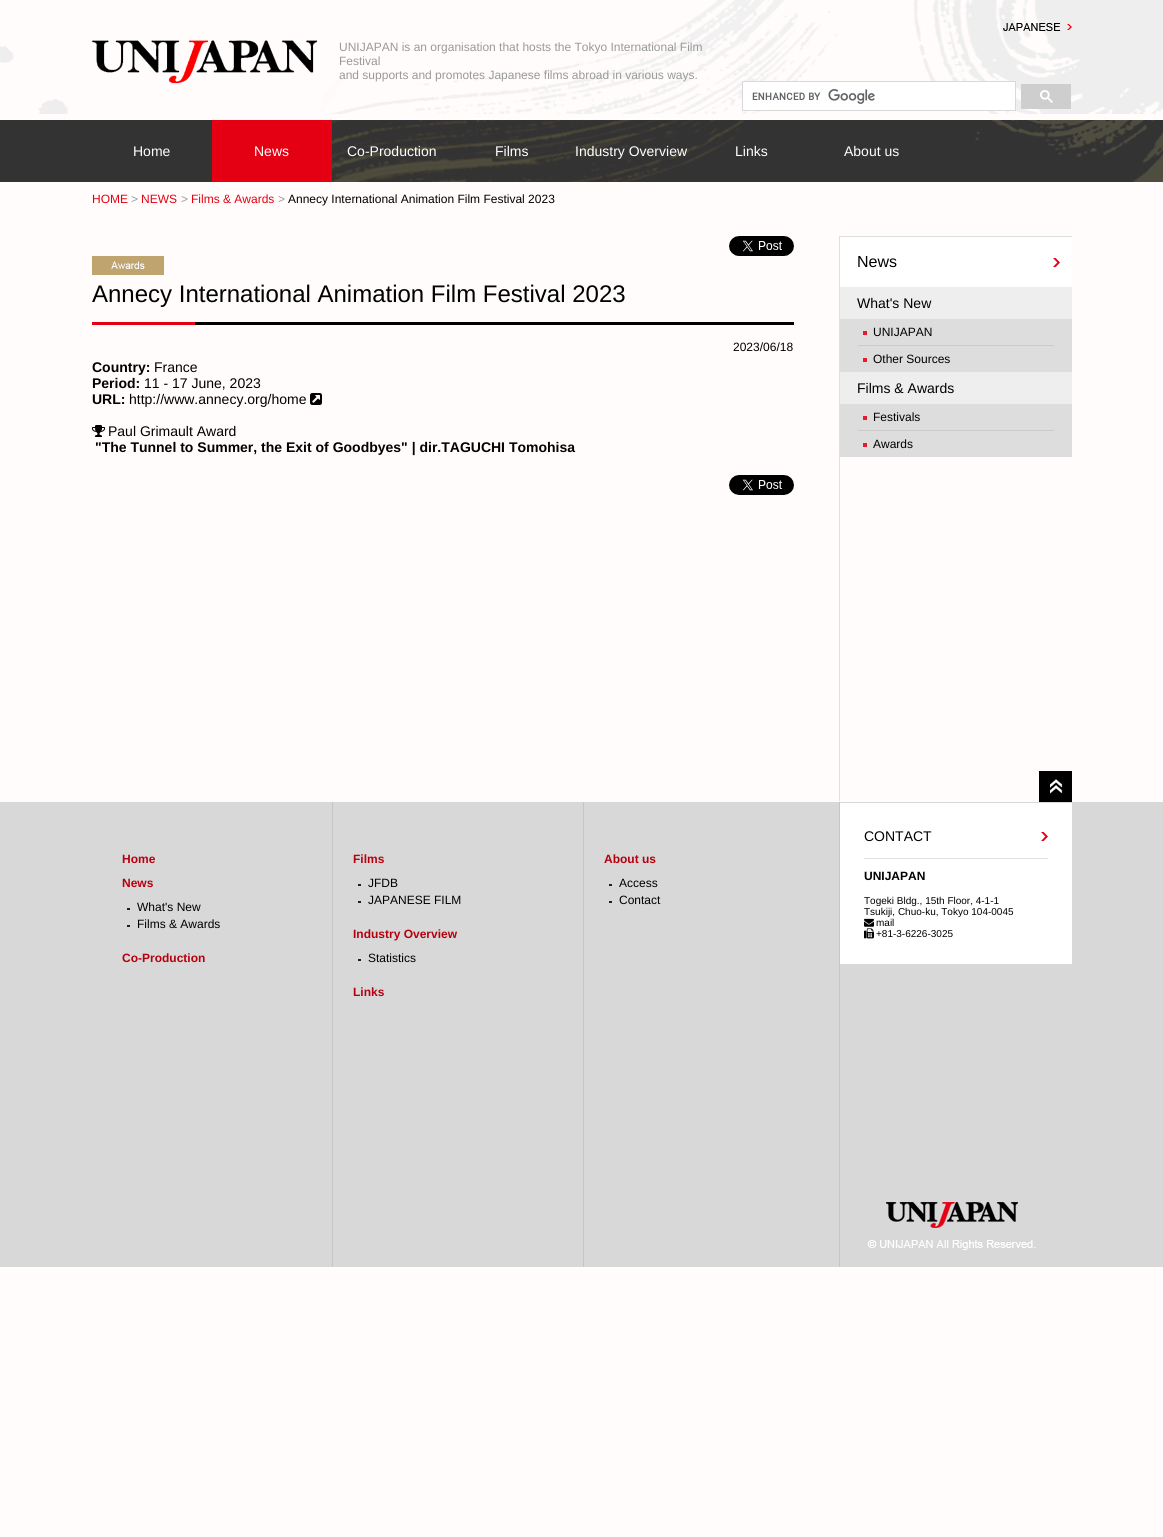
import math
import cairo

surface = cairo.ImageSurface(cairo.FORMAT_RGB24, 1163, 1537)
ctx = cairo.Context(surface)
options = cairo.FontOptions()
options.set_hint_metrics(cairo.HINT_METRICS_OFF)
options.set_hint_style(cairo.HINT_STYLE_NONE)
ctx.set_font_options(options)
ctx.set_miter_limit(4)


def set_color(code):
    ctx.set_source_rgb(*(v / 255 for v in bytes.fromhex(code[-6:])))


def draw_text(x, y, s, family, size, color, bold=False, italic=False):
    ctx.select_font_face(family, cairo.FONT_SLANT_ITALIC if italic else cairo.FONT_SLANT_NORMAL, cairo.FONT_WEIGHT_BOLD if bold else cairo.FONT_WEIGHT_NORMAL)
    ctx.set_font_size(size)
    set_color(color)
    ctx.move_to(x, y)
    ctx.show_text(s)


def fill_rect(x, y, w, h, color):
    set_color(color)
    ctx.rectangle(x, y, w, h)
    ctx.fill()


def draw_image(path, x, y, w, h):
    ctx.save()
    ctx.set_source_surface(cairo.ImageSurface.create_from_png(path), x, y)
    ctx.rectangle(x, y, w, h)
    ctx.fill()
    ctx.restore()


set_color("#fffcfb")
ctx.paint()
draw_image("assets/img1.png", 0, 0, 1163, 114)
draw_image("assets/img2.png", 92, 40, 226, 44)
draw_text(339, 51, "UNIJAPAN is an organisation that hosts the Tokyo International Film", "Liberation Sans", 12, "#999999")
draw_text(339, 65, "Festival", "Liberation Sans", 12, "#999999")
draw_text(339, 79, "and supports and promotes Japanese films abroad in various ways.", "Liberation Sans", 12, "#999999")
draw_image("assets/img3.png", 1003, 23, 69, 8)
set_color("#ffffff")
ctx.rectangle(742.5, 81.5, 273, 29)
ctx.fill_preserve()
set_color("#d9d9d9")
ctx.set_line_width(1)
ctx.stroke()
draw_image("assets/img4.png", 752, 89, 123, 15)
fill_rect(1021, 84, 50, 25, "#cecece")
draw_image("assets/img5.png", 1040, 90, 13, 13)
draw_image("assets/img6.png", 0, 120, 1163, 62)
draw_text(133, 156, "Home", "Liberation Sans", 14, "#ffffff")
fill_rect(212, 120, 120, 62, "#e40012")
draw_text(254, 156, "News", "Liberation Sans", 14, "#ffffff")
draw_text(347, 156, "Co-Production", "Liberation Sans", 14, "#ffffff")
draw_text(495, 156, "Films", "Liberation Sans", 14, "#ffffff")
draw_text(575, 156, "Industry Overview", "Liberation Sans", 14, "#ffffff")
draw_text(735, 156, "Links", "Liberation Sans", 14, "#ffffff")
draw_text(844, 156, "About us", "Liberation Sans", 14, "#ffffff")
draw_text(92, 203, "HOME", "Liberation Sans", 12, "#e40012")
draw_text(131, 203, ">", "Liberation Sans", 12, "#999999")
draw_text(141, 203, "NEWS", "Liberation Sans", 12, "#e40012")
draw_text(181, 203, ">", "Liberation Sans", 12, "#999999")
draw_text(191, 203, "Films & Awards", "Liberation Sans", 12, "#e40012")
draw_text(278, 203, ">", "Liberation Sans", 12, "#999999")
draw_text(288, 203, "Annecy International Animation Film Festival 2023", "Liberation Sans", 12, "#000000")
fill_rect(839, 236, 1, 565, "#dfdfdf")
draw_image("assets/img7.png", 729, 236, 65, 20)
draw_image("assets/img8.png", 92, 322, 702, 3)
draw_image("assets/img9.png", 92, 256, 72, 19)
draw_text(92, 302, "Annecy International Animation Film Festival 2023", "Liberation Sans", 24, "#000000")
draw_text(733, 351, "2023/06/18", "Liberation Sans", 12, "#000000")
draw_text(92, 372, "Country:", "Liberation Sans", 14, "#000000", bold=True)
draw_text(154, 372, "France", "Liberation Sans", 14, "#000000")
draw_text(92, 388, "Period:", "Liberation Sans", 14, "#000000", bold=True)
draw_text(144, 388, "11 - 17 June, 2023", "Liberation Sans", 14, "#000000")
draw_text(92, 404, "URL:", "Liberation Sans", 14, "#000000", bold=True)
draw_text(129, 404, "http://www.annecy.org/home", "Liberation Sans", 14, "#000000")
draw_image("assets/img10.png", 310, 393, 12, 12)
draw_image("assets/img11.png", 92, 425, 13, 12)
draw_text(108, 436, "Paul Grimault Award", "Liberation Sans", 14, "#000000")
draw_text(95, 452, "\"The Tunnel to Summer, the Exit of Goodbyes\" | dir.TAGUCHI Tomohisa", "Liberation Sans", 14, "#000000", bold=True)
draw_image("assets/img12.png", 729, 475, 65, 20)
fill_rect(840, 237, 232, 50, "#ffffff")
draw_image("assets/img13.png", 1053, 258, 7, 9)
fill_rect(840, 236, 232, 1, "#dfdfdf")
draw_text(857, 267, "News", "Liberation Sans", 16, "#000000")
fill_rect(840, 287, 232, 32, "#eeeeee")
draw_text(857, 308, "What's New", "Liberation Sans", 14, "#000000")
fill_rect(840, 319, 232, 53, "#dddddd")
fill_rect(863, 331, 4, 4, "#e81b2c")
fill_rect(858, 345, 196, 1, "#cacaca")
draw_text(873, 336, "UNIJAPAN", "Liberation Sans", 12, "#000000")
fill_rect(863, 358, 4, 4, "#e81b2c")
draw_text(873, 363, "Other Sources", "Liberation Sans", 12, "#000000")
fill_rect(840, 372, 232, 32, "#eeeeee")
draw_text(857, 393, "Films & Awards", "Liberation Sans", 14, "#000000")
fill_rect(840, 404, 232, 53, "#dddddd")
fill_rect(863, 416, 4, 4, "#e81b2c")
fill_rect(858, 430, 196, 1, "#cacaca")
draw_text(873, 421, "Festivals", "Liberation Sans", 12, "#000000")
fill_rect(863, 443, 4, 4, "#e81b2c")
draw_text(873, 448, "Awards", "Liberation Sans", 12, "#000000")
draw_image("assets/img14.png", 1039, 771, 33, 31)
fill_rect(0, 802, 1163, 465, "#d8d8d8")
draw_image("assets/img15.png", 867, 1202, 169, 48)
fill_rect(332, 802, 1, 465, "#c5c5c5")
draw_text(122, 863, "Home", "Liberation Sans", 12, "#b7000e", bold=True)
draw_text(122, 887, "News", "Liberation Sans", 12, "#b7000e", bold=True)
fill_rect(127, 908, 3, 2, "#1f1f1f")
draw_text(137, 911, "What's New", "Liberation Sans", 12, "#000000")
fill_rect(127, 925, 3, 2, "#1f1f1f")
draw_text(137, 928, "Films & Awards", "Liberation Sans", 12, "#000000")
draw_text(122, 962, "Co-Production", "Liberation Sans", 12, "#b7000e", bold=True)
fill_rect(583, 802, 1, 465, "#c5c5c5")
draw_text(353, 863, "Films", "Liberation Sans", 12, "#b7000e", bold=True)
fill_rect(358, 884, 3, 2, "#1f1f1f")
draw_text(368, 887, "JFDB", "Liberation Sans", 12, "#000000")
fill_rect(358, 901, 3, 2, "#1f1f1f")
draw_text(368, 904, "JAPANESE FILM", "Liberation Sans", 12, "#000000")
draw_text(353, 938, "Industry Overview", "Liberation Sans", 12, "#b7000e", bold=True)
fill_rect(358, 959, 3, 2, "#1f1f1f")
draw_text(368, 962, "Statistics", "Liberation Sans", 12, "#000000")
draw_text(353, 996, "Links", "Liberation Sans", 12, "#b7000e", bold=True)
fill_rect(839, 802, 1, 465, "#c5c5c5")
draw_text(604, 863, "About us", "Liberation Sans", 12, "#b7000e", bold=True)
fill_rect(609, 884, 3, 2, "#1f1f1f")
draw_text(619, 887, "Access", "Liberation Sans", 12, "#000000")
fill_rect(609, 901, 3, 2, "#1f1f1f")
draw_text(619, 904, "Contact", "Liberation Sans", 12, "#000000")
fill_rect(840, 803, 232, 161, "#ffffff")
fill_rect(864, 858, 184, 1, "#dfdfdf")
draw_image("assets/img13.png", 1041, 832, 7, 9)
draw_text(864, 841, "CONTACT", "Liberation Sans", 14, "#000000")
draw_text(864, 880, "UNIJAPAN", "Liberation Sans", 12, "#000000", bold=True)
draw_text(864, 904, "Togeki Bldg., 15th Floor, 4-1-1", "Liberation Sans", 10, "#000000")
draw_text(864, 915, "Tsukiji, Chuo-ku, Tokyo 104-0045", "Liberation Sans", 10, "#000000")
draw_image("assets/img16.png", 864, 918, 10, 9)
draw_text(876, 926, "mail", "Liberation Sans", 10, "#000000")
draw_image("assets/img17.png", 864, 928, 10, 11)
draw_text(876, 937, "+81-3-6226-3025", "Liberation Sans", 10, "#000000")
surface.write_to_png("output.png")
